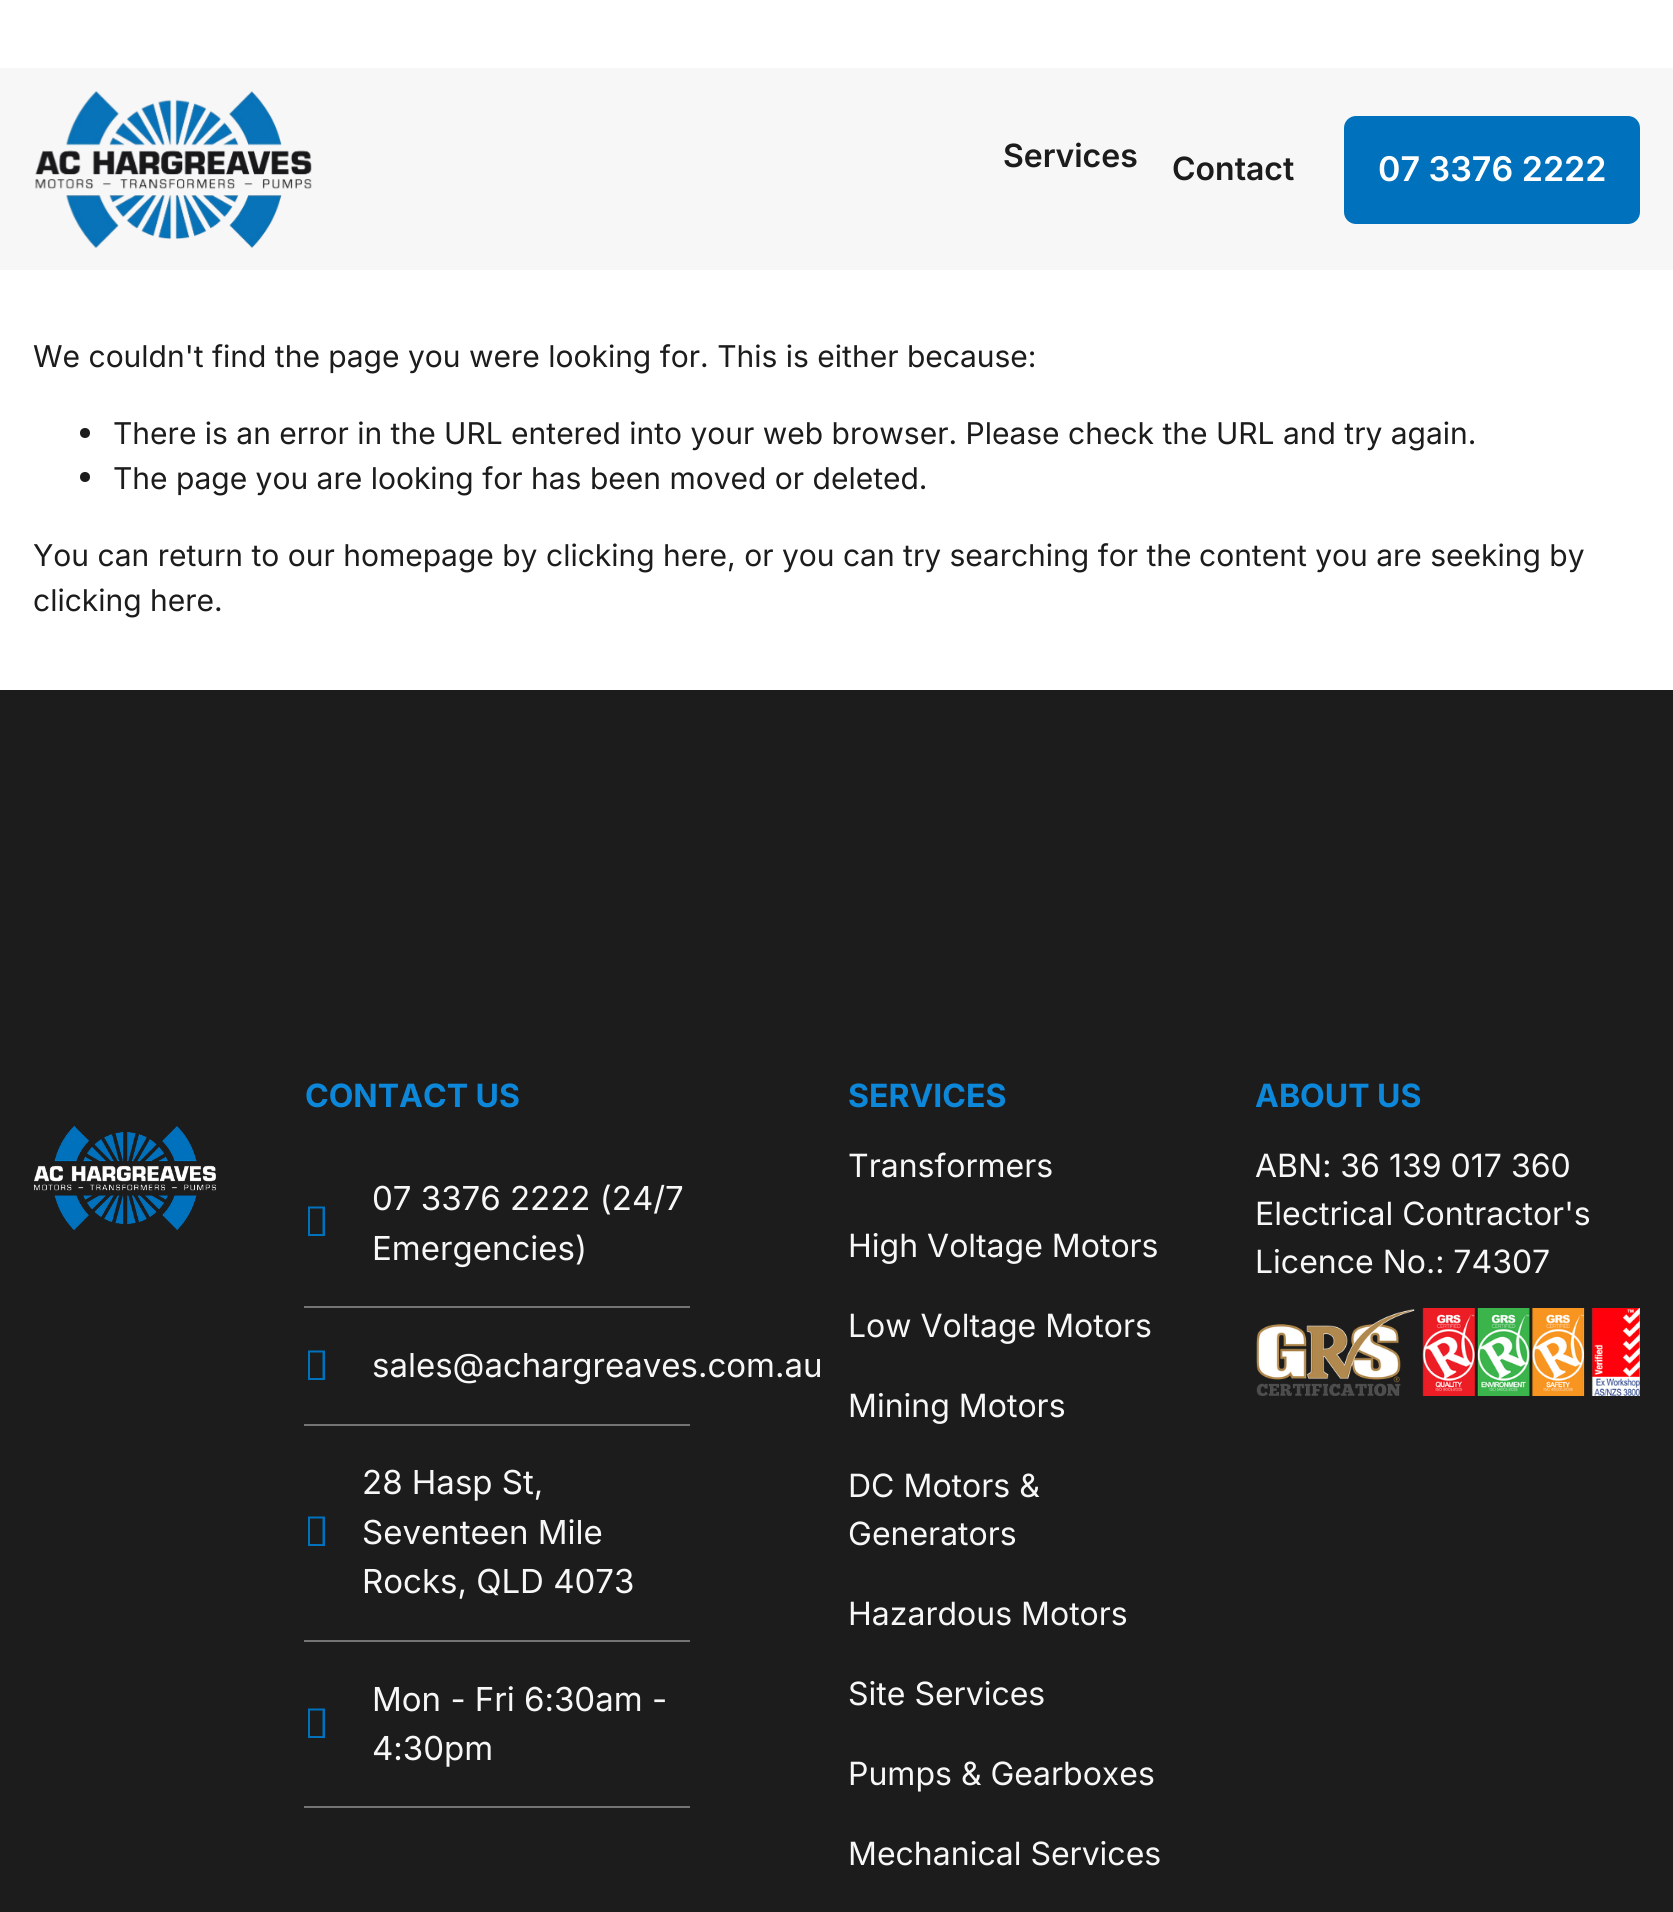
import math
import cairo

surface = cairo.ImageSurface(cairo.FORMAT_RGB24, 1673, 1912)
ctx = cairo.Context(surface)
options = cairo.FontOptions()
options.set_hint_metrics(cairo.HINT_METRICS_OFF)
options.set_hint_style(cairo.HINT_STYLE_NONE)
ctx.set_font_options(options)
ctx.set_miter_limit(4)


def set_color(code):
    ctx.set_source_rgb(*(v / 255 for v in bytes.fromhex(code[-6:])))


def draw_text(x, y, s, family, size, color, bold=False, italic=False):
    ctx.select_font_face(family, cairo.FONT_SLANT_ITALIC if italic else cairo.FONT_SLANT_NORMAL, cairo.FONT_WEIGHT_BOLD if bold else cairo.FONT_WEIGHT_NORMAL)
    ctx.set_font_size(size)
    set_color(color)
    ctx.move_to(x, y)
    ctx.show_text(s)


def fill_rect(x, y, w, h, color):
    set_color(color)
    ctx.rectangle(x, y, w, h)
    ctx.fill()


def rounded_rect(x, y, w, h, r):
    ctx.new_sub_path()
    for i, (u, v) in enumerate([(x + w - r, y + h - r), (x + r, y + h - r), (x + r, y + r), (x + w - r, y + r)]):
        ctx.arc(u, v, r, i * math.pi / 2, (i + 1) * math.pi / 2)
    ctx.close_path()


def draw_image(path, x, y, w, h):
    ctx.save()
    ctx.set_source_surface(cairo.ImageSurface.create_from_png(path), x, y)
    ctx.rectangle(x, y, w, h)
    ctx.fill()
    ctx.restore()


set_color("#ffffff")
ctx.paint()
fill_rect(0, 68, 1673, 202, "#f7f7f7")
draw_image("assets/img1.png", 35, 91, 277, 158)
draw_text(1003, 167, "Services", "Inter SemiBold", 32, "#1c1c1c")
draw_text(1172, 180, "Contact", "Inter SemiBold", 32, "#1c1c1c")
set_color("#0071bc")
rounded_rect(1344, 116, 296, 108, 12)
ctx.fill()
draw_text(1378, 181, "07 3376 2222", "Inter SemiBold", 34, "#ffffff")
draw_text(33, 367, "We couldn't find the page you were looking for. This is either because:", "Inter", 30, "#1c1c1c")
ctx.new_path()
ctx.arc(85, 433, 5, 0, 2 * math.pi)
ctx.fill()
draw_text(113, 444, "There is an error in the URL entered into your web browser. Please check the URL and try again.", "Inter", 30, "#1c1c1c")
ctx.new_path()
ctx.arc(85, 477, 5, 0, 2 * math.pi)
ctx.fill()
draw_text(113, 489, "The page you are looking for has been moved or deleted.", "Inter", 30, "#1c1c1c")
draw_text(33, 566, "You can return to our homepage by", "Inter", 30, "#1c1c1c")
draw_text(546, 566, "clicking here, or you can try searching for the", "Inter", 30, "#1c1c1c")
draw_text(1199, 566, "content you are seeking by", "Inter", 30, "#1c1c1c")
draw_text(33, 611, "clicking here.", "Inter", 30, "#1c1c1c")
fill_rect(0, 690, 1673, 1222, "#1c1c1c")
draw_text(305, 1107, "CONTACT US", "Inter", 32, "#0c87d9", bold=True)
draw_text(848, 1107, "SERVICES", "Inter", 32, "#0c87d9", bold=True)
draw_text(1255, 1107, "ABOUT US", "Inter", 32, "#0c87d9", bold=True)
draw_image("assets/img2.png", 34, 1126, 182, 104)
fill_rect(304, 1306, 386, 2, "#747474")
draw_text(372, 1210, "07 3376 2222 (24/7", "Inter", 33, "#f7f7f7")
set_color("#0071bc")
ctx.new_path()
ctx.move_to(308, 1236)
ctx.line_to(308, 1206.5)
ctx.line_to(325, 1206.5)
ctx.line_to(325, 1236)
ctx.close_path()
ctx.move_to(310, 1234)
ctx.line_to(322.5, 1234)
ctx.line_to(322.5, 1208.5)
ctx.line_to(310, 1208.5)
ctx.close_path()
ctx.fill()
draw_text(372, 1260, "Emergencies)", "Inter", 33, "#f7f7f7")
fill_rect(304, 1424, 386, 2, "#747474")
set_color("#0071bc")
ctx.new_path()
ctx.move_to(308, 1380)
ctx.line_to(308, 1350.5)
ctx.line_to(325, 1350.5)
ctx.line_to(325, 1380)
ctx.close_path()
ctx.move_to(310, 1378)
ctx.line_to(322.5, 1378)
ctx.line_to(322.5, 1352.5)
ctx.line_to(310, 1352.5)
ctx.close_path()
ctx.fill()
draw_text(372, 1377, "sales@achargreaves.com.au", "Inter", 33, "#f7f7f7")
fill_rect(304, 1640, 386, 2, "#747474")
draw_text(362, 1494, "28 Hasp St,", "Inter", 33, "#f7f7f7")
set_color("#0071bc")
ctx.new_path()
ctx.move_to(308, 1546)
ctx.line_to(308, 1516.5)
ctx.line_to(325, 1516.5)
ctx.line_to(325, 1546)
ctx.close_path()
ctx.move_to(310, 1544)
ctx.line_to(322.5, 1544)
ctx.line_to(322.5, 1518.5)
ctx.line_to(310, 1518.5)
ctx.close_path()
ctx.fill()
draw_text(362, 1544, "Seventeen Mile", "Inter", 33, "#f7f7f7")
draw_text(362, 1593, "Rocks, QLD 4073", "Inter", 33, "#f7f7f7")
fill_rect(304, 1806, 386, 2, "#747474")
draw_text(372, 1711, "Mon - Fri 6:30am -", "Inter", 33, "#f7f7f7")
set_color("#0071bc")
ctx.new_path()
ctx.move_to(308, 1738)
ctx.line_to(308, 1708.5)
ctx.line_to(325, 1708.5)
ctx.line_to(325, 1738)
ctx.close_path()
ctx.move_to(310, 1736)
ctx.line_to(322.5, 1736)
ctx.line_to(322.5, 1710.5)
ctx.line_to(310, 1710.5)
ctx.close_path()
ctx.fill()
draw_text(372, 1760, "4:30pm", "Inter", 33, "#f7f7f7")
draw_text(848, 1177, "Transformers", "Inter", 32, "#f7f7f7")
draw_text(848, 1257, "High Voltage Motors", "Inter", 32, "#f7f7f7")
draw_text(848, 1337, "Low Voltage Motors", "Inter", 32, "#f7f7f7")
draw_text(848, 1417, "Mining Motors", "Inter", 32, "#f7f7f7")
draw_text(848, 1497, "DC Motors &", "Inter", 32, "#f7f7f7")
draw_text(848, 1545, "Generators", "Inter", 32, "#f7f7f7")
draw_text(848, 1625, "Hazardous Motors", "Inter", 32, "#f7f7f7")
draw_text(848, 1705, "Site Services", "Inter", 32, "#f7f7f7")
draw_text(848, 1785, "Pumps & Gearboxes", "Inter", 32, "#f7f7f7")
draw_text(848, 1865, "Mechanical Services", "Inter", 32, "#f7f7f7")
draw_text(1255, 1177, "ABN: 36 139 017 360", "Inter", 32, "#f7f7f7")
draw_text(1255, 1225, "Electrical Contractor's", "Inter", 32, "#f7f7f7")
draw_text(1255, 1273, "Licence No.: 74307", "Inter", 32, "#f7f7f7")
draw_image("assets/img3.png", 1256, 1308, 384, 88)
surface.write_to_png("output.png")
